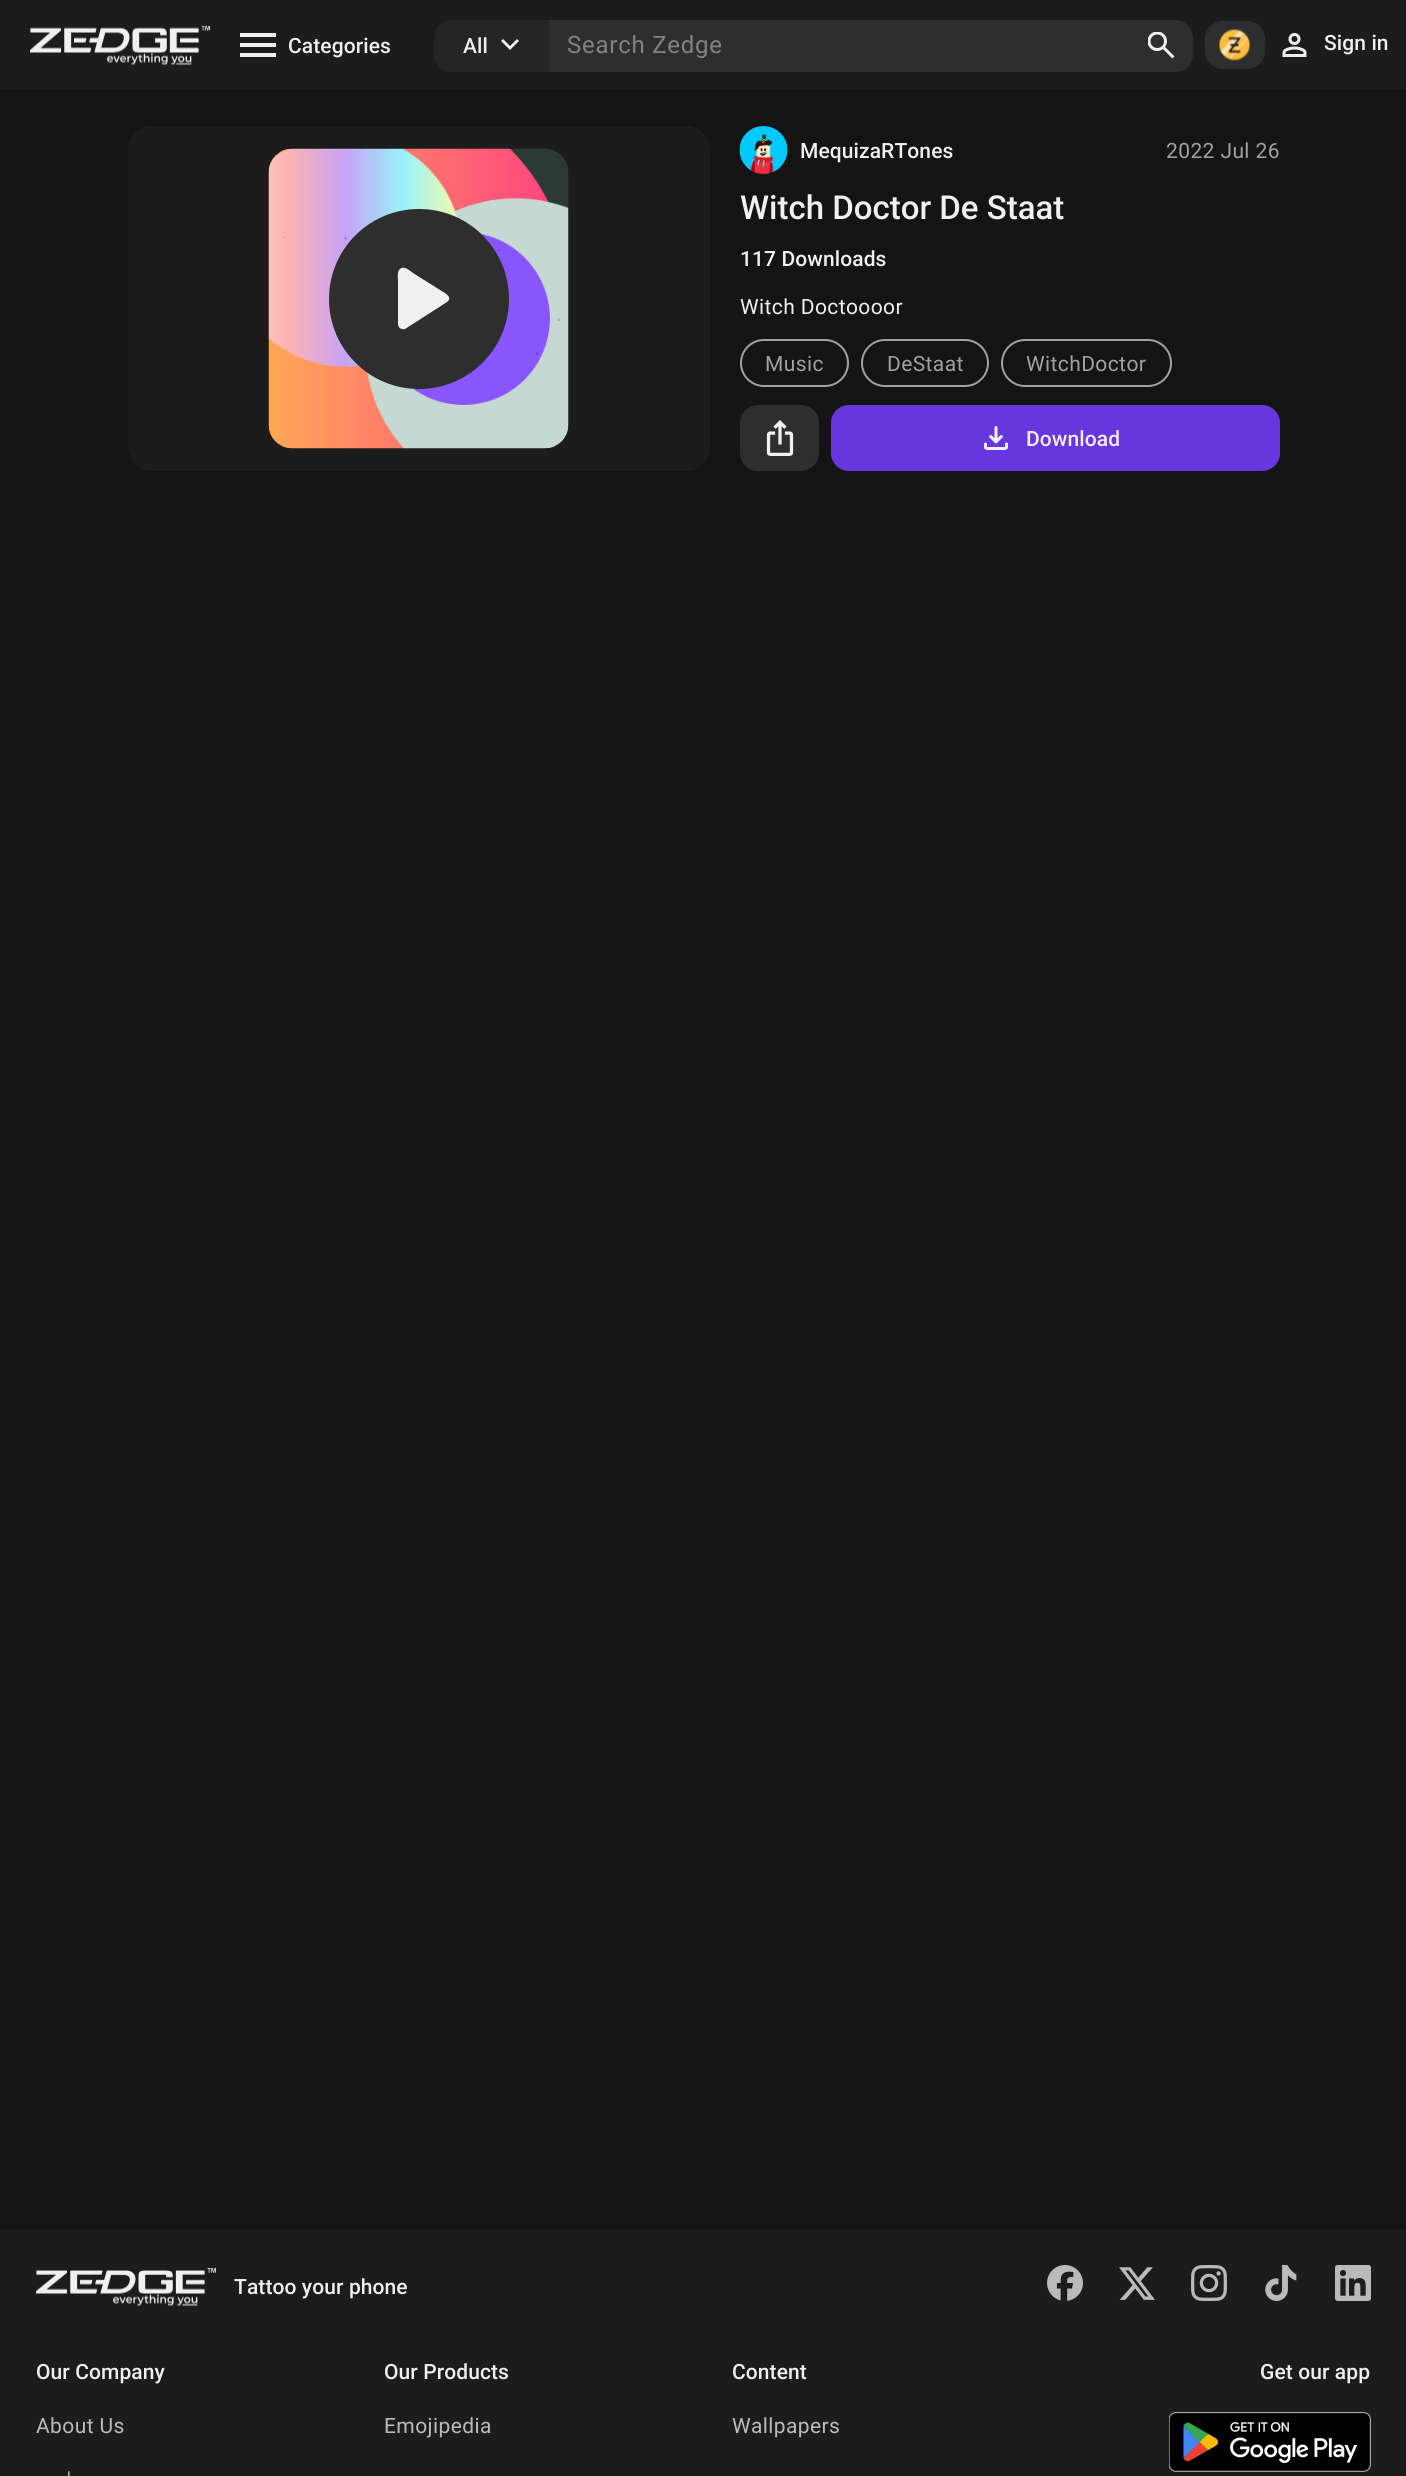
import math
import cairo

surface = cairo.ImageSurface(cairo.FORMAT_RGB24, 1406, 2476)
ctx = cairo.Context(surface)
options = cairo.FontOptions()
options.set_hint_metrics(cairo.HINT_METRICS_OFF)
options.set_hint_style(cairo.HINT_STYLE_NONE)
ctx.set_font_options(options)
ctx.set_miter_limit(4)


def set_color(code):
    ctx.set_source_rgb(*(v / 255 for v in bytes.fromhex(code[-6:])))


def draw_text(x, y, s, family, size, color, bold=False, italic=False):
    ctx.select_font_face(family, cairo.FONT_SLANT_ITALIC if italic else cairo.FONT_SLANT_NORMAL, cairo.FONT_WEIGHT_BOLD if bold else cairo.FONT_WEIGHT_NORMAL)
    ctx.set_font_size(size)
    set_color(color)
    ctx.move_to(x, y)
    ctx.show_text(s)


def draw_spaced(x, y, s, letter, word):
    ctx.move_to(x, y)
    for ch in s:
        ctx.show_text(ch)
        ctx.rel_move_to(letter + word * (ch == ' '), 0)


def fill_rect(x, y, w, h, color):
    set_color(color)
    ctx.rectangle(x, y, w, h)
    ctx.fill()


def rounded_rect(x, y, w, h, r):
    ctx.new_sub_path()
    for i, (u, v) in enumerate([(x + w - r, y + h - r), (x + r, y + h - r), (x + r, y + r), (x + w - r, y + r)]):
        ctx.arc(u, v, r, i * math.pi / 2, (i + 1) * math.pi / 2)
    ctx.close_path()


def draw_image(path, x, y, w, h):
    ctx.save()
    ctx.set_source_surface(cairo.ImageSurface.create_from_png(path), x, y)
    ctx.rectangle(x, y, w, h)
    ctx.fill()
    ctx.restore()


set_color("#141414")
ctx.paint()
fill_rect(0, 0, 1406, 90, "#1c1c1c")
draw_image("assets/img1.png", 30, 26, 180, 27)
draw_image("assets/img2.png", 107, 53, 85, 12)
set_color("#f0f0f0")
ctx.new_path()
ctx.move_to(240, 57)
ctx.line_to(240, 53)
ctx.line_to(276, 53)
ctx.line_to(276, 57)
ctx.close_path()
ctx.move_to(240, 47)
ctx.line_to(240, 43)
ctx.line_to(276, 43)
ctx.line_to(276, 47)
ctx.close_path()
ctx.move_to(240, 37)
ctx.line_to(240, 33)
ctx.line_to(276, 33)
ctx.line_to(276, 37)
ctx.close_path()
ctx.fill()
ctx.select_font_face("Roboto Medium")
ctx.set_font_size(21)
draw_spaced(288, 53, "Categories", 0.1, 0)
set_color("#252525")
ctx.new_path()
ctx.move_to(452, 20)
ctx.line_to(549, 20)
ctx.line_to(549, 72)
ctx.line_to(452, 72)
ctx.curve_to(442, 72, 434, 64, 434, 54)
ctx.line_to(434, 38)
ctx.curve_to(434, 28, 442, 20, 452, 20)
ctx.close_path()
ctx.fill()
set_color("#f0f0f0")
draw_spaced(463, 53, "All", 0.1, 0)
ctx.new_path()
ctx.move_to(510, 50)
ctx.line_to(501, 41)
ctx.line_to(503, 39)
ctx.line_to(510, 46)
ctx.line_to(517, 39)
ctx.line_to(519, 41)
ctx.close_path()
ctx.fill()
set_color("#2e2e2e")
ctx.new_path()
ctx.move_to(549, 20)
ctx.line_to(1175, 20)
ctx.curve_to(1185, 20, 1193, 28, 1193, 38)
ctx.line_to(1193, 54)
ctx.curve_to(1193, 64, 1185, 72, 1175, 72)
ctx.line_to(549, 72)
ctx.close_path()
ctx.fill()
ctx.select_font_face("Roboto")
ctx.set_font_size(24)
set_color("#828282")
draw_spaced(567, 53, "Search Zedge", 0.75, 0)
draw_image("assets/img3.png", 1148, 32, 27, 27)
set_color("#2e2e2e")
rounded_rect(1205, 21, 60, 48, 18)
ctx.fill()
draw_image("assets/img4.png", 1218, 28, 33, 33)
draw_image("assets/img5.png", 1282, 33, 25, 24)
ctx.select_font_face("Roboto Medium")
ctx.set_font_size(21)
set_color("#f0f0f0")
draw_spaced(1324, 50, "Sign in", 0.1, 0)
set_color("#1c1c1c")
rounded_rect(128, 126, 582, 345, 24)
ctx.fill()
draw_image("assets/img6.png", 268, 148, 301, 301)
set_color("#2e2e2e")
ctx.arc(419, 299, 90, 0, 2 * math.pi)
ctx.fill()
set_color("#f0f0f0")
ctx.new_path()
ctx.move_to(398, 324)
ctx.line_to(398, 281)
ctx.curve_to(398, 280, 397, 273, 399, 270)
ctx.line_to(400, 269)
ctx.curve_to(404, 265, 410, 271, 413, 273)
ctx.line_to(440, 290)
ctx.curve_to(443, 292, 454, 297, 447, 302)
ctx.line_to(405, 329)
ctx.curve_to(402, 330, 398, 328, 398, 324)
ctx.close_path()
ctx.fill()
draw_image("assets/img7.png", 739, 126, 49, 48)
draw_spaced(800, 158, "MequizaRTones", 0.1, 0)
ctx.select_font_face("Roboto")
set_color("#a1a1a1")
draw_spaced(1166, 158, "2022 Jul 26", 0.4, 0)
draw_text(740, 219, "Witch Doctor De Staat", "Roboto Medium", 33, "#f0f0f0")
ctx.set_font_size(21)
draw_spaced(740, 266, "117 Downloads", 0.1, 0)
ctx.select_font_face("Roboto")
draw_spaced(740, 314, "Witch Doctoooor", 0.4, 0)
rounded_rect(741, 340, 107, 46, 23)
set_color("#a1a1a1")
ctx.stroke()
draw_spaced(765, 371, "Music", 0.4, 0)
rounded_rect(862, 340, 126, 46, 23)
ctx.stroke()
draw_spaced(887, 371, "DeStaat", 0.4, 0)
rounded_rect(1002, 340, 169, 46, 23)
ctx.stroke()
draw_spaced(1026, 371, "WitchDoctor", 0.4, 0)
set_color("#2e2e2e")
rounded_rect(740, 405, 79, 66, 18)
ctx.fill()
draw_image("assets/img8.png", 766, 420, 28, 36)
set_color("#6836dd")
rounded_rect(831, 405, 449, 66, 18)
ctx.fill()
draw_image("assets/img9.png", 984, 426, 24, 24)
ctx.select_font_face("Roboto Medium")
set_color("#f0f0f0")
draw_spaced(1026, 446, "Download", 0.1, 0)
fill_rect(0, 2229, 1406, 247, "#1c1c1c")
draw_image("assets/img10.png", 36, 2268, 180, 26)
draw_image("assets/img2.png", 113, 2294, 85, 12)
set_color("#f0f0f0")
draw_spaced(234, 2294, "Tattoo your phone", 0.1, 0)
draw_image("assets/img11.png", 1047, 2265, 36, 36)
draw_image("assets/img12.png", 1119, 2267, 36, 33)
draw_image("assets/img13.png", 1191, 2265, 36, 36)
draw_image("assets/img14.png", 1265, 2265, 32, 36)
draw_image("assets/img15.png", 1335, 2265, 36, 36)
draw_spaced(36, 2379, "Our Company", 0.1, 0)
ctx.select_font_face("Roboto")
set_color("#bbbbbb")
draw_spaced(36, 2433, "About Us", 0.4, 0)
draw_spaced(67, 2487, "'", 0.4, 0)
ctx.select_font_face("Roboto Medium")
set_color("#f0f0f0")
draw_spaced(384, 2379, "Our Products", 0.1, 0)
ctx.select_font_face("Roboto")
set_color("#bbbbbb")
draw_spaced(384, 2433, "Emojipedia", 0.4, 0)
ctx.select_font_face("Roboto Medium")
set_color("#f0f0f0")
draw_spaced(732, 2379, "Content", 0.1, 0)
ctx.select_font_face("Roboto")
set_color("#bbbbbb")
draw_spaced(732, 2433, "Wallpapers", 0.4, 0)
ctx.select_font_face("Roboto Medium")
set_color("#f0f0f0")
draw_spaced(1260, 2379, "Get our app", 0.1, 0)
draw_image("assets/img16.png", 1169, 2411, 202, 61)
surface.write_to_png("output.png")
